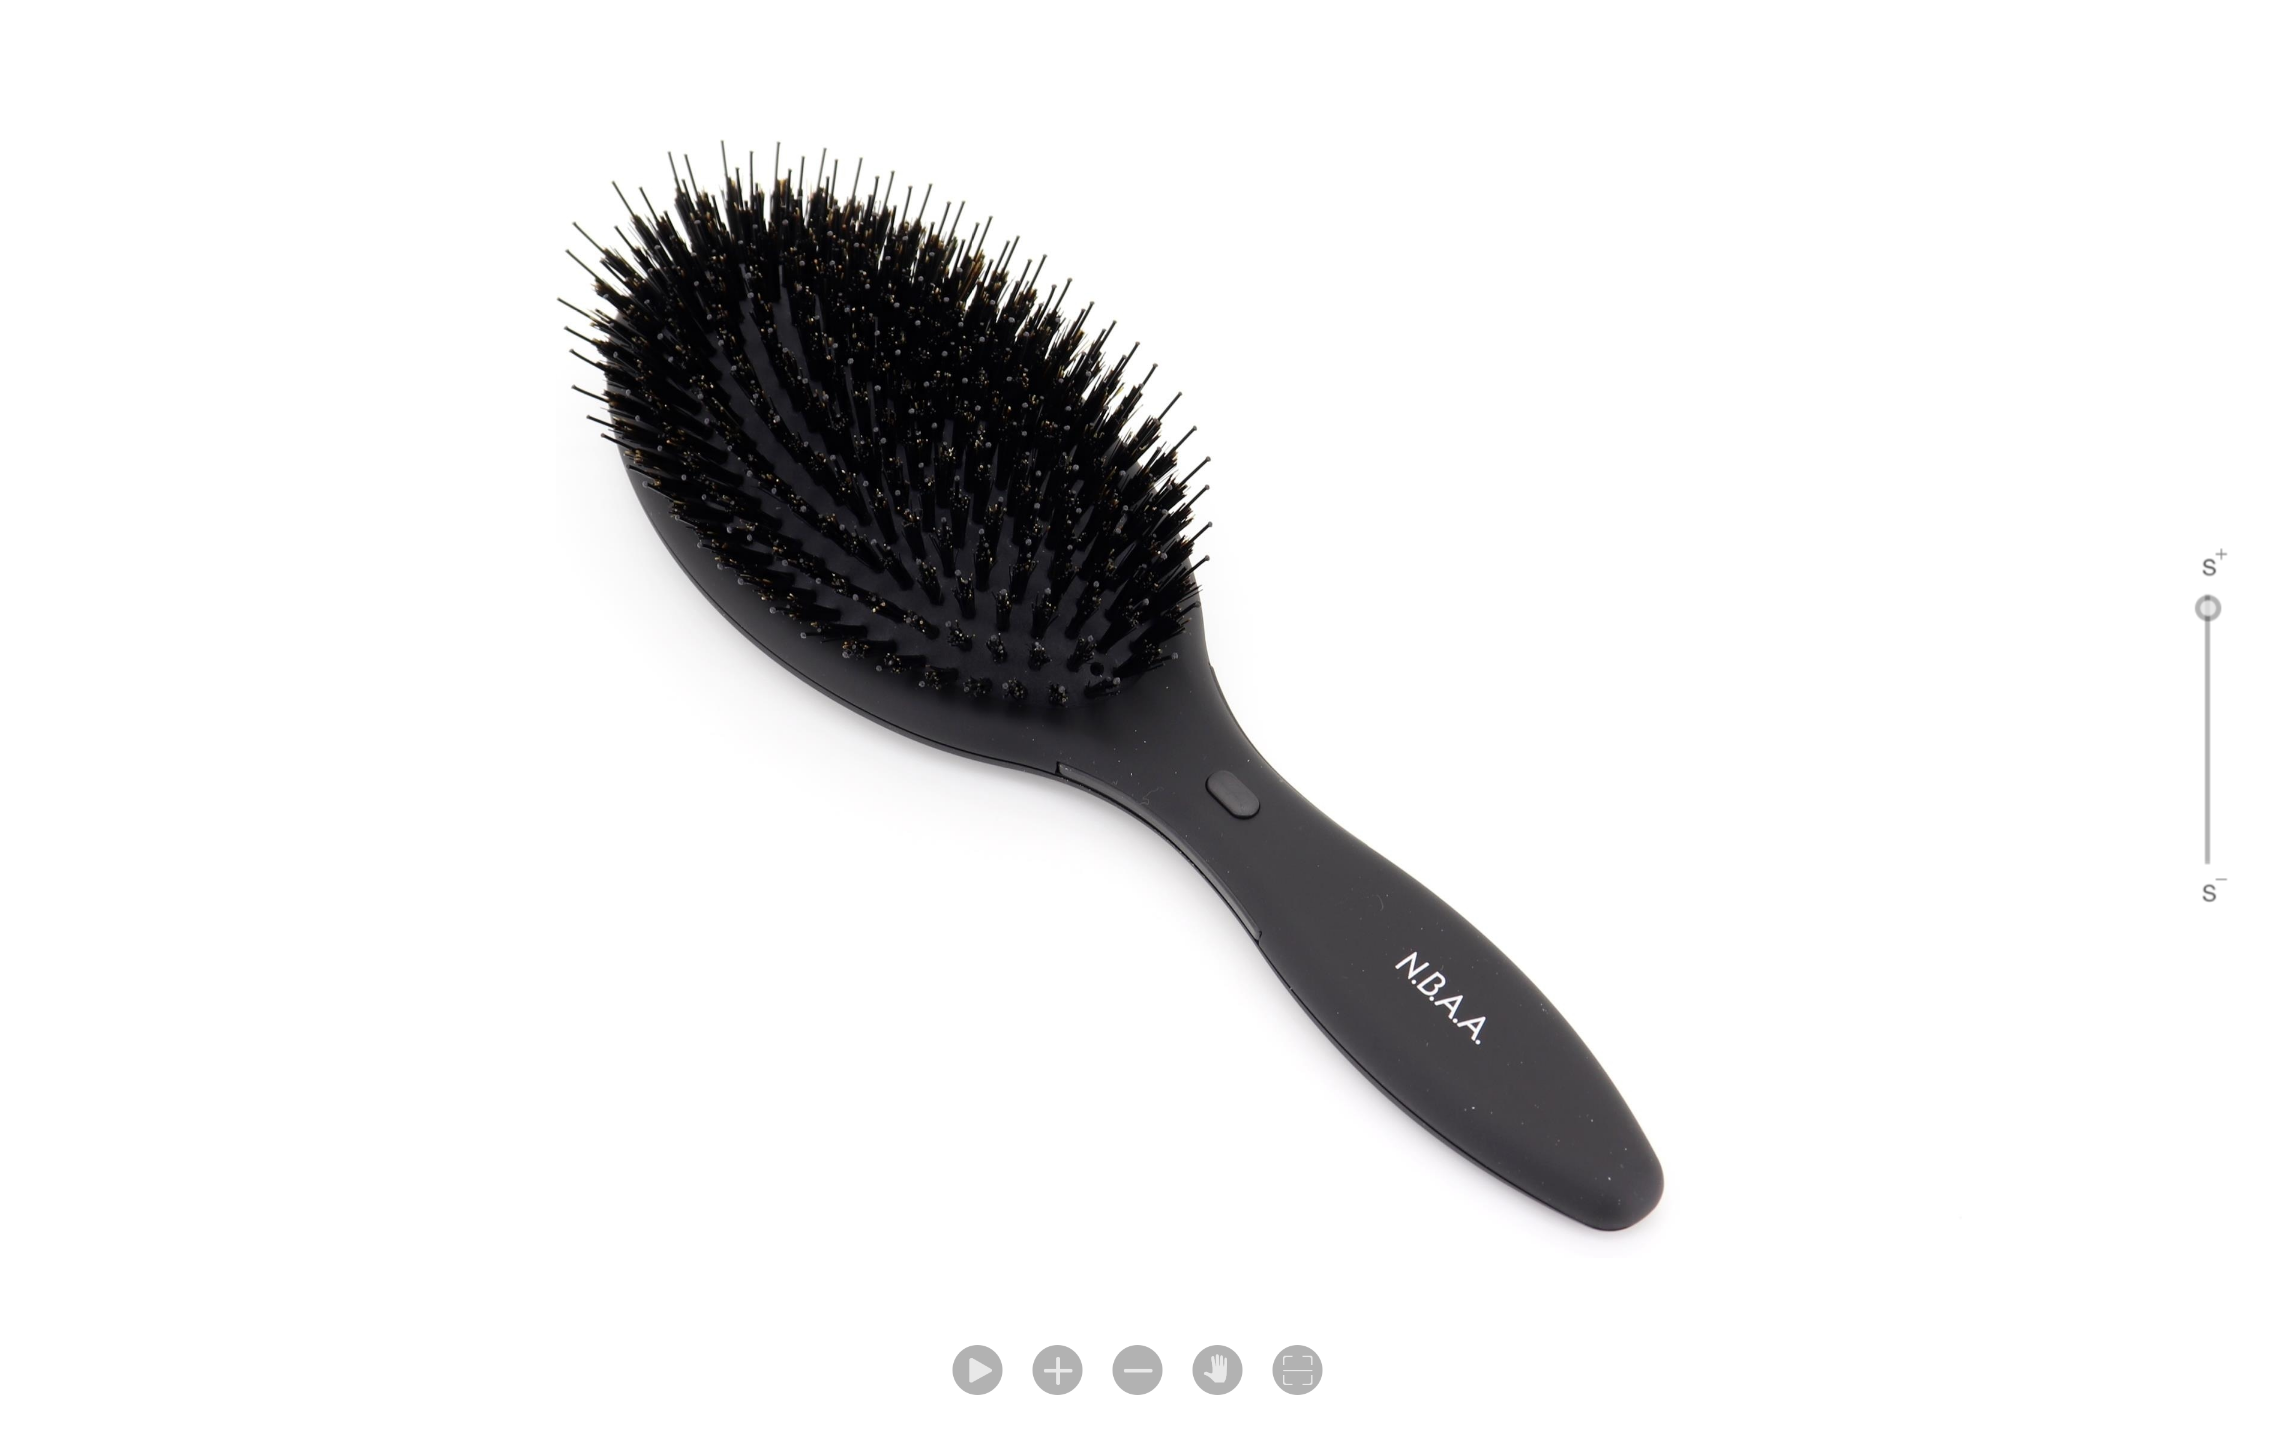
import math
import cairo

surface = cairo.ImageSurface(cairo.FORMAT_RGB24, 2274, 1450)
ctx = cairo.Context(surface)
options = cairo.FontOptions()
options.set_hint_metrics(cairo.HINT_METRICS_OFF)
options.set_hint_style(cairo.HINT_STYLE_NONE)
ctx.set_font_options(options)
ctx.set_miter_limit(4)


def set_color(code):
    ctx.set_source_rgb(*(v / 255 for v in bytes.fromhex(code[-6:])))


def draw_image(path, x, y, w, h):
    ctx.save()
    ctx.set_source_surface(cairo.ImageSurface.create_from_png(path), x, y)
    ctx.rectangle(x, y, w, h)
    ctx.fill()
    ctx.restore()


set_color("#ffffff")
ctx.paint()
draw_image("assets/img1.png", 556, 139, 1406, 1119)
draw_image("assets/img2.png", 952, 1345, 51, 50)
draw_image("assets/img3.png", 1032, 1345, 51, 50)
draw_image("assets/img4.png", 1112, 1345, 51, 50)
draw_image("assets/img5.png", 1192, 1345, 51, 50)
draw_image("assets/img6.png", 1272, 1345, 51, 50)
draw_image("assets/img7.png", 2202, 548, 26, 355)
draw_image("assets/img8.png", 2204, 593, 7, 272)
draw_image("assets/img9.png", 2194, 594, 28, 28)
surface.write_to_png("output.png")
